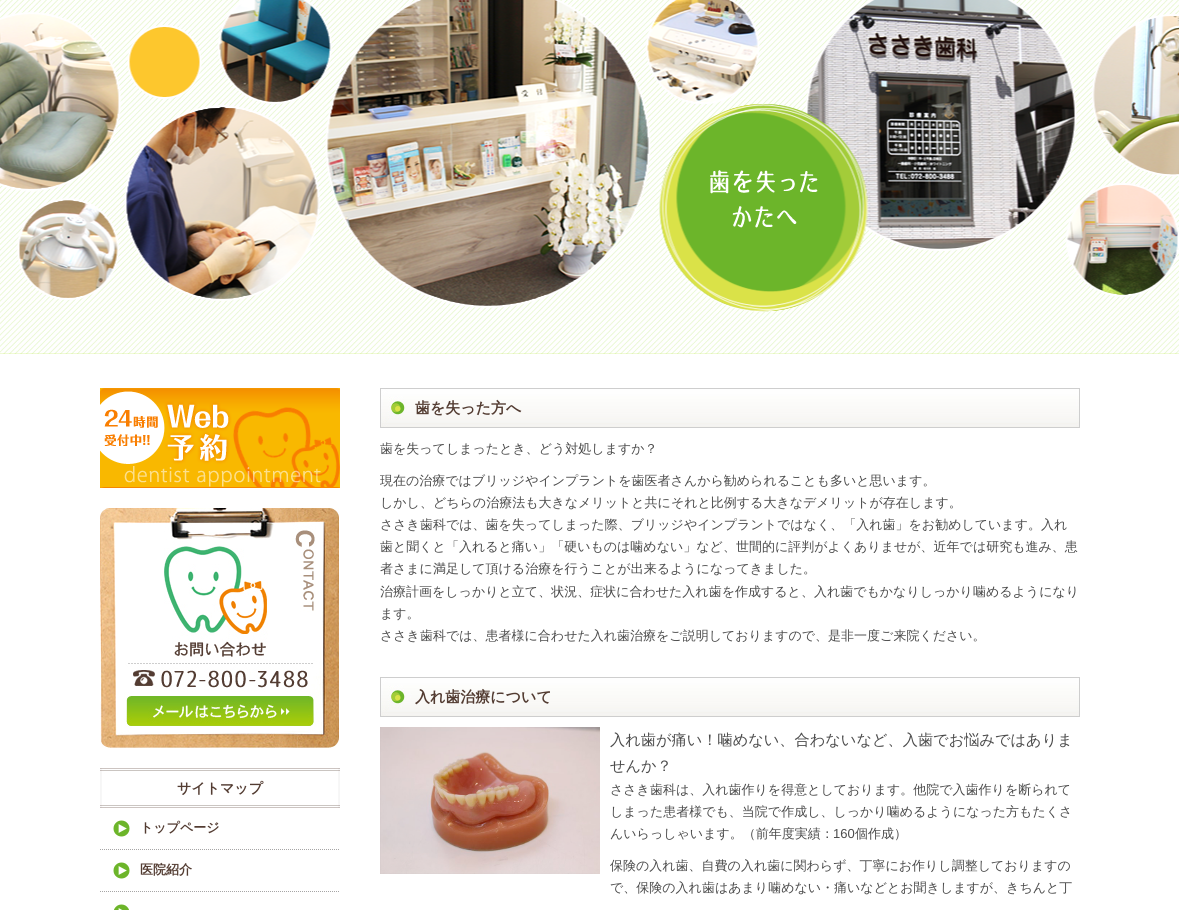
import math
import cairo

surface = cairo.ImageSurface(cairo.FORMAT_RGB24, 1179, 910)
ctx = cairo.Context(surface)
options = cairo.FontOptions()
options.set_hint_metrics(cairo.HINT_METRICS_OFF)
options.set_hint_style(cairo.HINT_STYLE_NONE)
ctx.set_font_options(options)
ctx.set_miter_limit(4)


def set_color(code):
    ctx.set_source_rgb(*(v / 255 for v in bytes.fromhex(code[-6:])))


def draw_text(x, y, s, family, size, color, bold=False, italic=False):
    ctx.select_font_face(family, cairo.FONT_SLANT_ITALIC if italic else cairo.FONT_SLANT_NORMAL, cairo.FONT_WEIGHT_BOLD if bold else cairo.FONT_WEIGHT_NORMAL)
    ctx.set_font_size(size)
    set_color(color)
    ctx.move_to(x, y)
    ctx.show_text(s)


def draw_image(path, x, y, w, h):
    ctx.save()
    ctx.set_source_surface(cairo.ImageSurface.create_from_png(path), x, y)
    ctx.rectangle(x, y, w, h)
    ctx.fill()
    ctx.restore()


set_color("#ffffff")
ctx.paint()
draw_image("assets/img1.png", 0, 0, 1179, 354)
draw_image("assets/img2.png", 0, 0, 1179, 312)
draw_image("assets/img3.png", 710, 170, 108, 58)
draw_image("assets/img4.png", 100, 388, 240, 100)
draw_image("assets/img5.png", 100, 508, 239, 240)
draw_image("assets/img6.png", 100, 768, 240, 40)
draw_text(177, 793, "サイトマップ", "WenQuanYi Zen Hei", 14, "#533c32", bold=True)
draw_image("assets/img7.png", 112, 820, 18, 17)
ctx.new_path()
ctx.move_to(100, 849.5)
ctx.line_to(340, 849.5)
set_color("#a6a5a5")
ctx.set_line_width(1)
ctx.set_dash([1, 1])
ctx.stroke()
draw_text(140, 832, "トップページ", "WenQuanYi Zen Hei", 13, "#533c32", bold=True)
draw_image("assets/img7.png", 112, 862, 18, 17)
ctx.new_path()
ctx.move_to(100, 891.5)
ctx.line_to(340, 891.5)
set_color("#a6a5a5")
ctx.stroke()
draw_text(140, 874, "医院紹介", "WenQuanYi Zen Hei", 13, "#533c32", bold=True)
draw_image("assets/img8.png", 114, 904, 15, 6)
draw_image("assets/img9.png", 380, 388, 700, 40)
draw_text(415, 413, "歯を失った方へ", "WenQuanYi Zen Hei", 15, "#533c32", bold=True)
draw_text(380, 453, "歯を失ってしまったとき、どう対処しますか？", "WenQuanYi Zen Hei Medium", 13, "#4b4b4b")
ctx.save()
ctx.rectangle(380, 438, 700, 219)
ctx.clip()
draw_text(380, 485, "現在の治療ではブリッジやインプラントを歯医者さんから勧められることも多いと思います。", "WenQuanYi Zen Hei Medium", 13, "#4b4b4b")
ctx.restore()
draw_text(380, 507, "しかし、どちらの治療法も大きなメリットと共にそれと比例する大きなデメリットが存在します。", "WenQuanYi Zen Hei Medium", 13, "#4b4b4b")
draw_text(380, 529, "ささき歯科では、歯を失ってしまった際、ブリッジやインプラントではなく、「入れ歯」をお勧めしています。入れ", "WenQuanYi Zen Hei Medium", 13, "#4b4b4b")
draw_text(380, 551, "歯と聞くと「入れると痛い」「硬いものは噛めない」など、世間的に評判がよくありませが、近年では研究も進み、患", "WenQuanYi Zen Hei Medium", 13, "#4b4b4b")
draw_text(380, 573, "者さまに満足して頂ける治療を行うことが出来るようになってきました。", "WenQuanYi Zen Hei Medium", 13, "#4b4b4b")
draw_text(380, 596, "治療計画をしっかりと立て、状況、症状に合わせた入れ歯を作成すると、入れ歯でもかなりしっかり噛めるようになり", "WenQuanYi Zen Hei Medium", 13, "#4b4b4b")
draw_text(380, 618, "ます。", "WenQuanYi Zen Hei Medium", 13, "#4b4b4b")
draw_text(380, 640, "ささき歯科では、患者様に合わせた入れ歯治療をご説明しておりますので、是非一度ご来院ください。", "WenQuanYi Zen Hei Medium", 13, "#4b4b4b")
draw_image("assets/img9.png", 380, 677, 700, 40)
draw_text(415, 702, "入れ歯治療について", "WenQuanYi Zen Hei", 15, "#533c32", bold=True)
draw_image("assets/img10.png", 380, 727, 220, 147)
draw_text(610, 745, "入れ歯が痛い！噛めない、合わないなど、入歯でお悩みではありま", "WenQuanYi Zen Hei Medium", 15.2, "#4b4b4b")
draw_text(610, 771, "せんか？", "WenQuanYi Zen Hei Medium", 15.2, "#4b4b4b")
draw_text(610, 794, "ささき歯科は、入れ歯作りを得意としております。他院で入歯作りを断られて", "WenQuanYi Zen Hei Medium", 13, "#4b4b4b")
draw_text(610, 816, "しまった患者様でも、当院で作成し、しっかり噛めるようになった方もたくさ", "WenQuanYi Zen Hei Medium", 13, "#4b4b4b")
draw_text(610, 838, "んいらっしゃいます。（前年度実績：", "WenQuanYi Zen Hei Medium", 13, "#4b4b4b")
draw_text(833, 838, "160", "Liberation Sans", 13, "#4b4b4b")
draw_text(855, 838, "個作成）", "WenQuanYi Zen Hei Medium", 13, "#4b4b4b")
draw_text(610, 870, "保険の入れ歯、自費の入れ歯に関わらず、丁寧にお作りし調整しておりますの", "WenQuanYi Zen Hei Medium", 13, "#4b4b4b")
draw_text(610, 892, "で、保険の入れ歯はあまり噛めない・痛いなどとお聞きしますが、きちんと丁", "WenQuanYi Zen Hei Medium", 13, "#4b4b4b")
surface.write_to_png("output.png")
